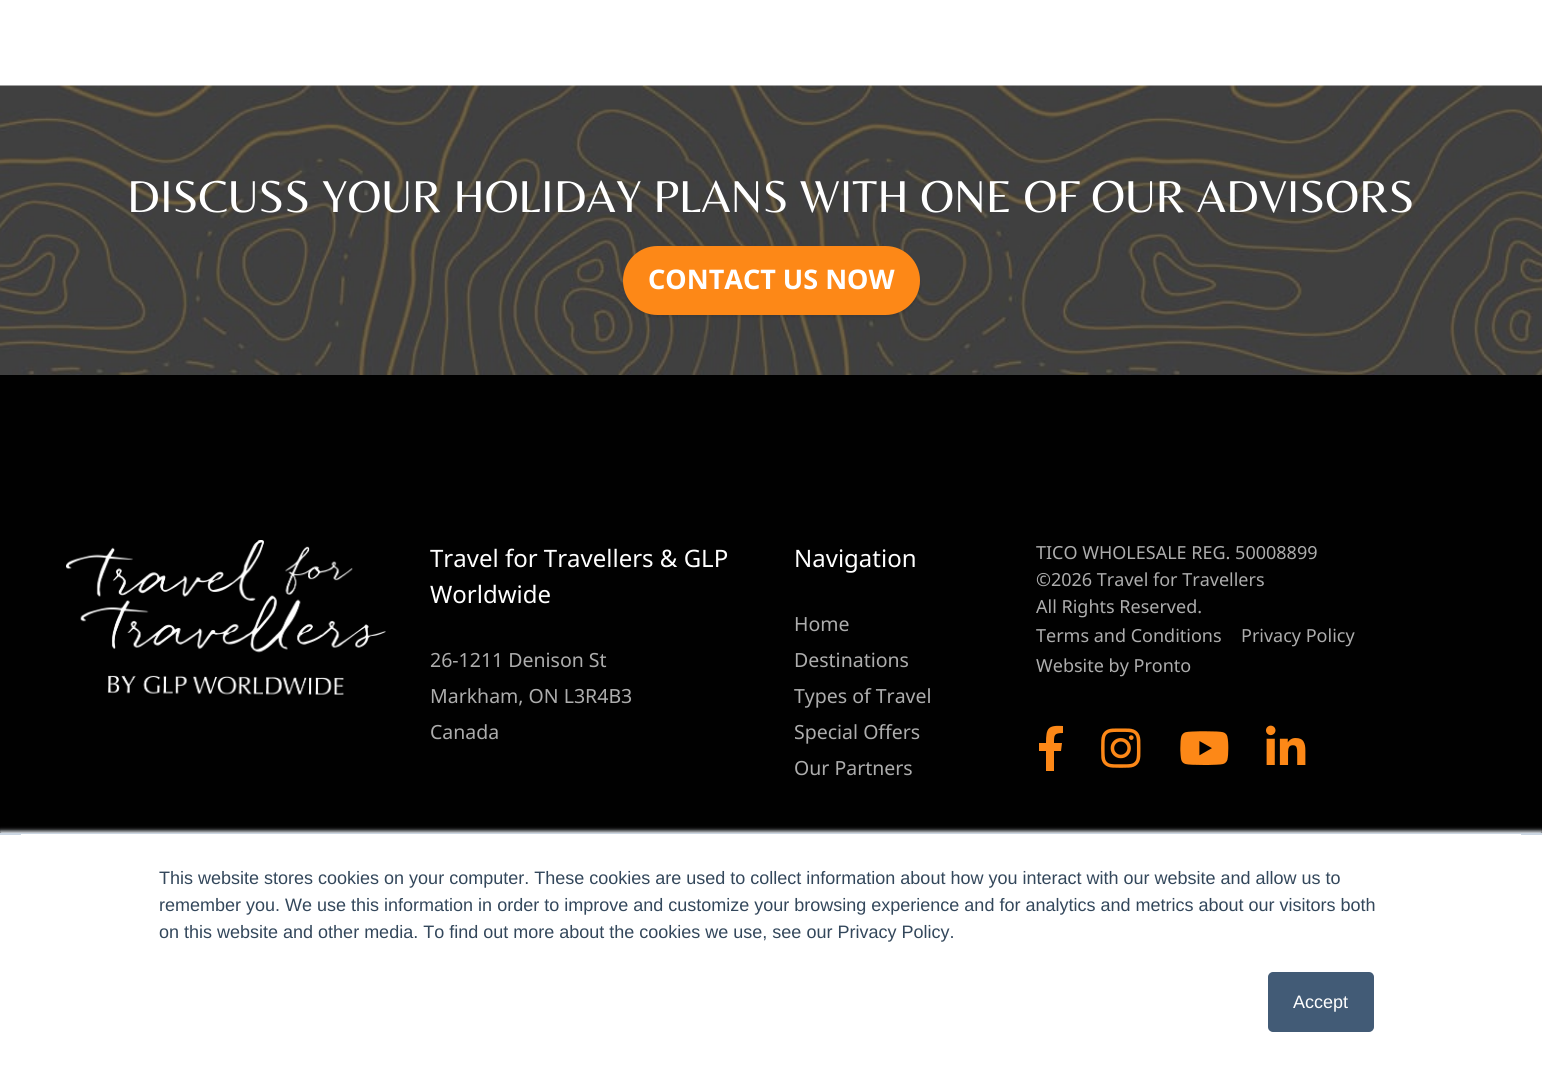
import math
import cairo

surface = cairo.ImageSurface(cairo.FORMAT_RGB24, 1542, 1070)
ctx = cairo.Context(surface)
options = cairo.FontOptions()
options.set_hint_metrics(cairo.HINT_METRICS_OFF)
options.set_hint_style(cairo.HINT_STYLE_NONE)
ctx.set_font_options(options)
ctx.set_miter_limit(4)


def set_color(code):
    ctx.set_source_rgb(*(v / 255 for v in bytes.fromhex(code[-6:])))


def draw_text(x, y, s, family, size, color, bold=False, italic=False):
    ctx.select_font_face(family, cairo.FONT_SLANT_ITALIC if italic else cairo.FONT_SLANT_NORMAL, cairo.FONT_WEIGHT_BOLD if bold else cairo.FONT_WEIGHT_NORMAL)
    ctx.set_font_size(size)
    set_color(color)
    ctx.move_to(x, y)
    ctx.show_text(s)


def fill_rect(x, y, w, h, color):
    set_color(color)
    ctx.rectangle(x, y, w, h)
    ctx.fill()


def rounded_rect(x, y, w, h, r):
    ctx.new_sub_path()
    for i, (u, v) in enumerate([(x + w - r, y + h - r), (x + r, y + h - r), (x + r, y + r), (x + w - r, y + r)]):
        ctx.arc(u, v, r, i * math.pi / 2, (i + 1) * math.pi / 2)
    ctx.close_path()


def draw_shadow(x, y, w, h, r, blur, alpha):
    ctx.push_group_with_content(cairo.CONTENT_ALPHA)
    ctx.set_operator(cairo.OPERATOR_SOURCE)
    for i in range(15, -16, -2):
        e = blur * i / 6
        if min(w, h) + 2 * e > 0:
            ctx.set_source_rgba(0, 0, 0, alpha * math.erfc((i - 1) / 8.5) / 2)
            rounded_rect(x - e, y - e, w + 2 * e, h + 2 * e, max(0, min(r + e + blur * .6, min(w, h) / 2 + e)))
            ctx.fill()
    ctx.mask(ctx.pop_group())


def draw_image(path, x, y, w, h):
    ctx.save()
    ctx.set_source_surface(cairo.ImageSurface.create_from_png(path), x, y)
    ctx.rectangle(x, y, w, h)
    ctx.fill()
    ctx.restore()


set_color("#ffffff")
ctx.paint()
draw_image("assets/img1.png", 0, 85, 1542, 290)
draw_text(127, 212, "DISCUSS YOUR HOLIDAY PLANS WITH ONE OF OUR ADVISORS", "Belleza", 46.5, "#ffffff")
set_color("#000000")
draw_shadow(623, 248, 297, 69, 34.5, 1.5, 0.1)
set_color("#fd8817")
rounded_rect(624, 247, 295, 67, 33.5)
ctx.fill_preserve()
ctx.stroke()
draw_text(648, 289, "CONTACT US NOW", "Noto Sans", 27, "#ffffff", bold=True)
fill_rect(0, 375, 1542, 458, "#010101")
draw_image("assets/img2.png", 66, 540, 320, 155)
draw_text(430, 567, "Travel for Travellers & GLP", "Noto Sans", 24, "#ffffff")
draw_text(430, 603, "Worldwide", "Noto Sans", 24, "#ffffff")
draw_text(430, 667, "26-1211 Denison St", "Noto Sans", 19.5, "#adadad")
draw_text(430, 703, "Markham, ON L3R4B3", "Noto Sans", 19.5, "#adadad")
draw_text(430, 739, "Canada", "Noto Sans", 19.5, "#adadad")
draw_text(794, 567, "Navigation", "Noto Sans", 24, "#ffffff")
draw_text(794, 631, "Home", "Noto Sans", 19.5, "#adadad")
draw_text(794, 667, "Destinations", "Noto Sans", 19.5, "#adadad")
draw_text(794, 703, "Types of Travel", "Noto Sans", 19.5, "#adadad")
draw_text(794, 739, "Special Offers", "Noto Sans", 19.5, "#adadad")
draw_text(794, 775, "Our Partners", "Noto Sans", 19.5, "#adadad")
draw_text(1036, 559, "TICO WHOLESALE REG. 50008899", "Noto Sans", 18, "#adadad")
draw_text(1036, 586, "©2026 Travel for Travellers", "Noto Sans", 18, "#adadad")
draw_text(1036, 613, "All Rights Reserved.", "Noto Sans", 18, "#adadad")
draw_text(1036, 642, "Terms and Conditions", "Noto Sans", 18, "#adadad")
draw_text(1241, 642, "Privacy Policy", "Noto Sans", 18, "#adadad")
draw_text(1036, 672, "Website by Pronto", "Noto Sans", 18, "#adadad")
set_color("#fd8817")
ctx.new_path()
ctx.move_to(1061, 751)
ctx.line_to(1054, 751)
ctx.line_to(1054, 771)
ctx.line_to(1046, 771)
ctx.line_to(1046, 751)
ctx.line_to(1039, 751)
ctx.line_to(1039, 743)
ctx.line_to(1046, 743)
ctx.curve_to(1046, 728, 1048, 725, 1063, 726)
ctx.line_to(1063, 733)
ctx.curve_to(1054, 733, 1054, 735, 1054, 743)
ctx.line_to(1062, 743)
ctx.close_path()
ctx.fill()
draw_image("assets/img3.png", 1101, 728, 40, 40)
draw_image("assets/img4.png", 1180, 731, 49, 34)
draw_image("assets/img5.png", 1266, 725, 40, 40)
set_color("#eaf0f6")
draw_shadow(0, 831, 1542, 239, 0, 2, 1)
fill_rect(0, 835, 1542, 235, "#ffffff")
fill_rect(0, 833, 1542, 2, "#cbd6e2")
fill_rect(21, 834, 1500, 1, "#ffffff")
draw_text(159, 884, "This website stores cookies on your computer. These cookies are used to collect information about how you interact with our website and allow us to", "Liberation Sans", 18, "#33475b")
draw_text(159, 911, "remember you. We use this information in order to improve and customize your browsing experience and for analytics and metrics about our visitors both", "Liberation Sans", 18, "#33475b")
draw_text(159, 938, "on this website and other media. To find out more about the cookies we use, see our Privacy Policy.", "Liberation Sans", 18, "#33475b")
set_color("#425b76")
rounded_rect(1269, 973, 104, 58, 4)
ctx.fill_preserve()
ctx.stroke()
draw_text(1293, 1008, "Accept", "Liberation Sans", 18, "#ffffff")
surface.write_to_png("output.png")
